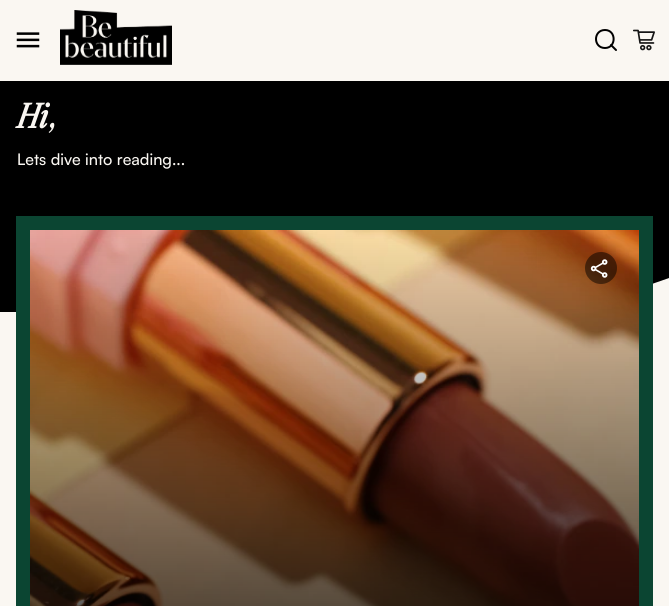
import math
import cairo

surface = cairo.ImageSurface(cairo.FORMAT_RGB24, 669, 606)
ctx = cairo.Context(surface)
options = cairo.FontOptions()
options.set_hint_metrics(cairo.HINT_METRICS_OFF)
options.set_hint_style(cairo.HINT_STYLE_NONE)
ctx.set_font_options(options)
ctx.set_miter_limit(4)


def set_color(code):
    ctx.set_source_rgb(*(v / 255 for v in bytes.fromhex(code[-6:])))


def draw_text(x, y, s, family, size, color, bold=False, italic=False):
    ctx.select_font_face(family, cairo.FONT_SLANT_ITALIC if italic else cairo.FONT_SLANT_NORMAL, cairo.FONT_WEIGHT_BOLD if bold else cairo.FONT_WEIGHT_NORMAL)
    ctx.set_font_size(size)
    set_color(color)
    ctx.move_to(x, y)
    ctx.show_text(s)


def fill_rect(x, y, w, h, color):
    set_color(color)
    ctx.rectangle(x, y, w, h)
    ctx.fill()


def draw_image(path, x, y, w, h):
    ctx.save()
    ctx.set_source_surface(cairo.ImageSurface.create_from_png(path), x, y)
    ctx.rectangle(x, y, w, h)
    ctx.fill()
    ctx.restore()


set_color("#faf7f2")
ctx.paint()
set_color("#000000")
ctx.new_path()
ctx.move_to(0, 0)
ctx.line_to(669, 0)
ctx.line_to(669, 278)
ctx.curve_to(633, 291, 594, 302, 553, 312)
ctx.line_to(0, 312)
ctx.close_path()
ctx.fill()
fill_rect(0, 0, 669, 81, "#faf7f2")
draw_image("assets/img1.png", 16, 32, 24, 16)
draw_image("assets/img2.png", 60, 10, 112, 55)
ctx.new_path()
ctx.move_to(605, 48)
ctx.curve_to(616.5, 48, 616.5, 30, 605, 30)
ctx.curve_to(593, 30, 593, 48, 605, 48)
ctx.close_path()
ctx.move_to(616, 50)
ctx.line_to(611, 45)
set_color("#000000")
ctx.set_line_cap(cairo.LINE_CAP_ROUND)
ctx.set_line_join(cairo.LINE_JOIN_ROUND)
ctx.stroke()
draw_image("assets/img3.png", 633, 29, 22, 22)
draw_text(17, 128, "Hi", "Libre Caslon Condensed", 32, "#faf7f2", bold=True, italic=True)
draw_text(48, 128, ",", "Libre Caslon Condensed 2", 32, "#faf7f2", bold=True, italic=True)
draw_text(17, 165, "Lets dive into reading...", "Satoshi Medium", 16, "#faf7f2")
fill_rect(16, 216, 637, 390, "#0b4532")
draw_image("assets/img4.png", 30, 230, 609, 376)
ctx.set_source_rgba(0, 0, 0, 0.5)
ctx.arc(601, 268, 16, 0, 2 * math.pi)
ctx.fill()
draw_image("assets/img5.png", 590, 259, 18, 19)
surface.write_to_png("output.png")
